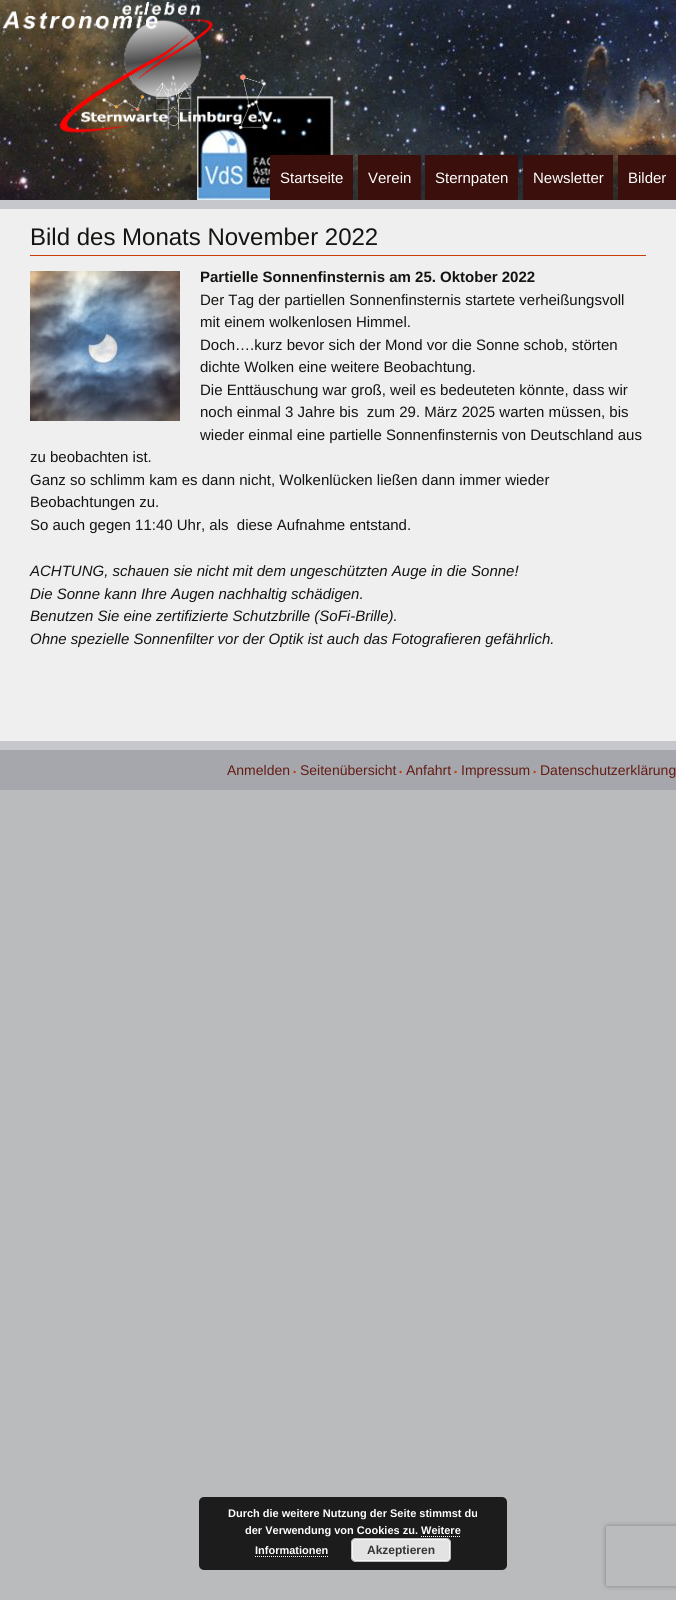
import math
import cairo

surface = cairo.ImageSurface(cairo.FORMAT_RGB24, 676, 1600)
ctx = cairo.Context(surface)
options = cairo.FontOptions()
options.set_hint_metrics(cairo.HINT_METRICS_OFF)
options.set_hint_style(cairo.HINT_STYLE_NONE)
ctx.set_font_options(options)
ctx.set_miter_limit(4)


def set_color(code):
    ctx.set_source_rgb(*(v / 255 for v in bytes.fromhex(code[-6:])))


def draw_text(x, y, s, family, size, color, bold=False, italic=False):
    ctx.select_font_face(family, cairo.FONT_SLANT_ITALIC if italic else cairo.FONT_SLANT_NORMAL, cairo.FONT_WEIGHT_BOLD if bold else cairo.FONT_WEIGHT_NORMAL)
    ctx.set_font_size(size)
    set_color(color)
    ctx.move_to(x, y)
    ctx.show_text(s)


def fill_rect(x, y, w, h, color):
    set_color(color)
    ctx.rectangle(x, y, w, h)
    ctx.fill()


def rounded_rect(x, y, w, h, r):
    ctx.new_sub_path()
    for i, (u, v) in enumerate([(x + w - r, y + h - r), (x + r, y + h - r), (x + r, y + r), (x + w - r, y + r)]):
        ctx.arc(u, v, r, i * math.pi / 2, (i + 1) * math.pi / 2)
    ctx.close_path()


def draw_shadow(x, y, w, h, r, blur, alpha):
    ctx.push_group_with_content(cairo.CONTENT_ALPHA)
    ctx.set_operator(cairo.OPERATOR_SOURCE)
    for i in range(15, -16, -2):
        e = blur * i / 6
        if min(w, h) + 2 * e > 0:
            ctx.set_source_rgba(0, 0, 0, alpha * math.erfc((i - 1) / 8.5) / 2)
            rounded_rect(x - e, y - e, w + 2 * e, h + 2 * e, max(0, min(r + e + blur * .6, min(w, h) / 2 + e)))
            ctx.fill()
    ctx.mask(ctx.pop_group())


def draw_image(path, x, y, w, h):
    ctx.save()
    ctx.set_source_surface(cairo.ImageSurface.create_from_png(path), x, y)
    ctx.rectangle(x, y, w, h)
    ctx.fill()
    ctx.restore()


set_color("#babbbc")
ctx.paint()
fill_rect(0, 200, 676, 550, "#c5c7cd")
draw_image("assets/img1.png", 0, 0, 676, 200)
draw_image("assets/img2.png", 2, 1, 274, 132)
fill_rect(270, 155, 83, 45, "#3b100c")
draw_text(280, 183, "Startseite", "Liberation Sans", 15, "#ffffff")
fill_rect(358, 155, 63, 45, "#3b100c")
draw_text(368, 183, "Verein", "Liberation Sans", 15, "#ffffff")
fill_rect(425, 155, 93, 45, "#3b100c")
draw_text(435, 183, "Sternpaten", "Liberation Sans", 15, "#ffffff")
fill_rect(523, 155, 90, 45, "#3b100c")
draw_text(533, 183, "Newsletter", "Liberation Sans", 15, "#ffffff")
fill_rect(618, 155, 58, 45, "#3b100c")
draw_text(628, 183, "Bilder", "Liberation Sans", 15, "#ffffff")
fill_rect(0, 209, 676, 532, "#efefef")
fill_rect(30, 255, 616, 1, "#ca3c08")
draw_text(30, 245, "Bild des Monats November 2022", "Liberation Sans", 24, "#141412")
draw_image("assets/img3.png", 30, 271, 150, 150)
draw_text(200, 282, "Partielle Sonnenfinsternis am 25. Oktober 2022", "Liberation Sans", 15, "#141412", bold=True)
draw_text(200, 305, "Der Tag der partiellen Sonnenfinsternis startete verheißungsvoll", "Liberation Sans", 15, "#141412")
draw_text(200, 327, "mit einem wolkenlosen Himmel.", "Liberation Sans", 15, "#141412")
draw_text(200, 350, "Doch….kurz bevor sich der Mond vor die Sonne schob, störten", "Liberation Sans", 15, "#141412")
draw_text(200, 372, "dichte Wolken eine weitere Beobachtung.", "Liberation Sans", 15, "#141412")
draw_text(200, 395, "Die Enttäuschung war groß, weil es bedeuteten könnte, dass wir", "Liberation Sans", 15, "#141412")
draw_text(200, 417, "noch einmal 3 Jahre bis  zum 29. März 2025 warten müssen, bis", "Liberation Sans", 15, "#141412")
draw_text(200, 440, "wieder einmal eine partielle Sonnenfinsternis von Deutschland aus", "Liberation Sans", 15, "#141412")
draw_text(30, 462, "zu beobachten ist.", "Liberation Sans", 15, "#141412")
draw_text(30, 485, "Ganz so schlimm kam es dann nicht, Wolkenlücken ließen dann immer wieder", "Liberation Sans", 15, "#141412")
draw_text(30, 507, "Beobachtungen zu.", "Liberation Sans", 15, "#141412")
draw_text(30, 530, "So auch gegen 11:40 Uhr, als  diese Aufnahme entstand.", "Liberation Sans", 15, "#141412")
draw_text(30, 576, "ACHTUNG, schauen sie nicht mit dem ungeschützten Auge in die Sonne!", "Liberation Sans", 15, "#141412", italic=True)
draw_text(30, 599, "Die Sonne kann Ihre Augen nachhaltig schädigen.", "Liberation Sans", 15, "#141412", italic=True)
draw_text(30, 621, "Benutzen Sie eine zertifizierte Schutzbrille (SoFi-Brille).", "Liberation Sans", 15, "#141412", italic=True)
draw_text(30, 644, "Ohne spezielle Sonnenfilter vor der Optik ist auch das Fotografieren gefährlich.", "Liberation Sans", 15, "#141412", italic=True)
fill_rect(0, 750, 676, 40, "#a5a7ac")
draw_text(227, 775, "Anmelden", "Liberation Sans", 14, "#641c15")
draw_text(293, 775, "•", "Liberation Sans", 9, "#ca3c08")
draw_text(300, 775, "Seitenübersicht", "Liberation Sans", 14, "#641c15")
draw_text(399, 775, "•", "Liberation Sans", 9, "#ca3c08")
draw_text(406, 775, "Anfahrt", "Liberation Sans", 14, "#641c15")
draw_text(454, 775, "•", "Liberation Sans", 9, "#ca3c08")
draw_text(461, 775, "Impressum", "Liberation Sans", 14, "#641c15")
draw_text(533, 775, "•", "Liberation Sans", 9, "#ca3c08")
draw_text(540, 775, "Datenschutzerklärung", "Liberation Sans", 14, "#641c15")
set_color("#1c1c1c")
rounded_rect(199, 1497, 308, 73, 5)
ctx.fill()
draw_text(228, 1517, "Durch die weitere Nutzung der Seite stimmst du", "Liberation Sans", 11, "#ffffff", bold=True)
draw_text(245, 1534, "der Verwendung von Cookies zu. Weitere", "Liberation Sans", 11, "#ffffff", bold=True)
draw_text(255, 1554, "Informationen", "Liberation Sans", 11, "#ffffff", bold=True)
ctx.new_path()
ctx.move_to(421, 1536.5)
ctx.line_to(461, 1536.5)
ctx.set_line_width(1)
ctx.set_dash([1, 1])
ctx.stroke()
ctx.new_path()
ctx.move_to(255, 1556.5)
ctx.line_to(328, 1556.5)
ctx.stroke()
set_color("#e3e3e3")
rounded_rect(351, 1538, 100, 24, 5)
ctx.fill()
rounded_rect(352.5, 1539.5, 97, 21, 3.5)
set_color("#f6f6f6")
ctx.set_dash([])
ctx.stroke()
rounded_rect(351.5, 1538.5, 99, 23, 4.5)
set_color("#bbbbbb")
ctx.stroke()
draw_text(367, 1554, "Akzeptieren", "Liberation Sans", 12, "#333333", bold=True)
ctx.save()
ctx.set_fill_rule(cairo.FILL_RULE_EVEN_ODD)
ctx.new_path()
ctx.move_to(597, 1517)
ctx.line_to(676, 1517)
ctx.line_to(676, 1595)
ctx.line_to(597, 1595)
ctx.close_path()
ctx.move_to(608, 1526)
ctx.line_to(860, 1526)
ctx.curve_to(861, 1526, 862, 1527, 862, 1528)
ctx.line_to(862, 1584)
ctx.curve_to(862, 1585, 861, 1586, 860, 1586)
ctx.line_to(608, 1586)
ctx.curve_to(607, 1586, 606, 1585, 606, 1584)
ctx.line_to(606, 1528)
ctx.curve_to(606, 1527, 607, 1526, 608, 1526)
ctx.close_path()
ctx.clip()
set_color("#808080")
draw_shadow(606, 1526, 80, 60, 2, 2.5, 1)
ctx.restore()
surface.write_to_png("output.png")
